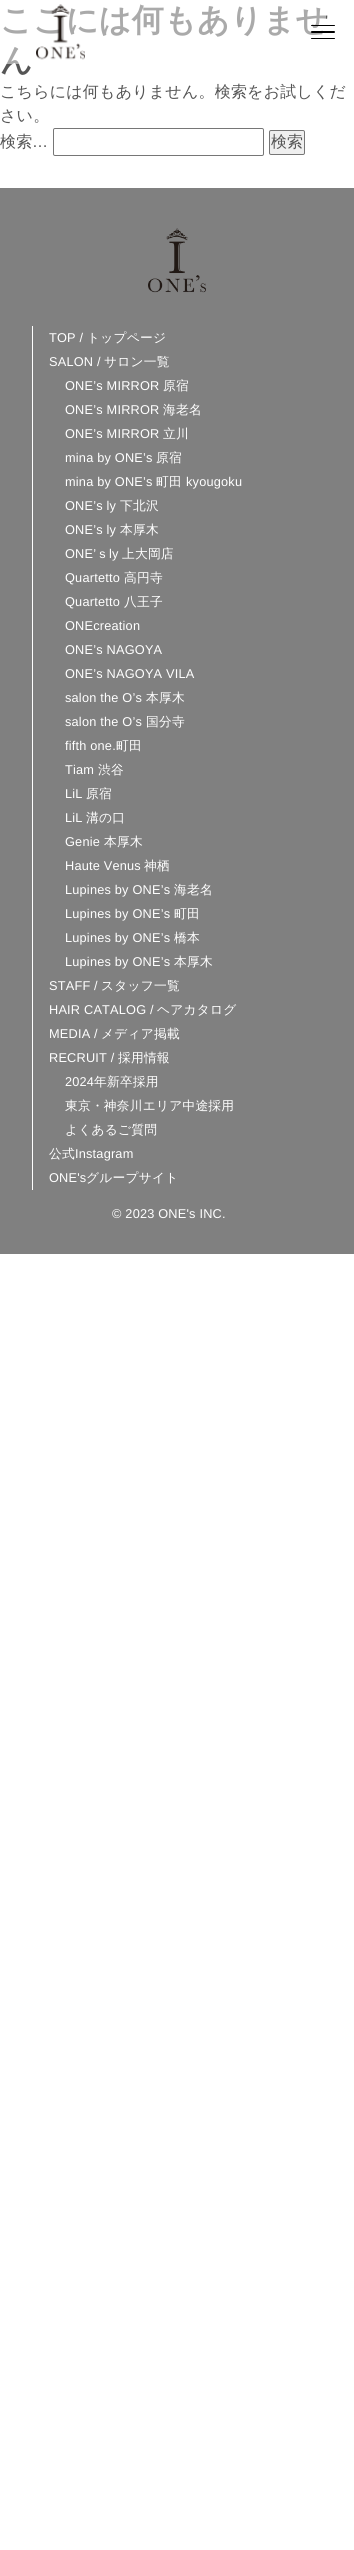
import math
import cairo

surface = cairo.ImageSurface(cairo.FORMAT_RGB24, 354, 2550)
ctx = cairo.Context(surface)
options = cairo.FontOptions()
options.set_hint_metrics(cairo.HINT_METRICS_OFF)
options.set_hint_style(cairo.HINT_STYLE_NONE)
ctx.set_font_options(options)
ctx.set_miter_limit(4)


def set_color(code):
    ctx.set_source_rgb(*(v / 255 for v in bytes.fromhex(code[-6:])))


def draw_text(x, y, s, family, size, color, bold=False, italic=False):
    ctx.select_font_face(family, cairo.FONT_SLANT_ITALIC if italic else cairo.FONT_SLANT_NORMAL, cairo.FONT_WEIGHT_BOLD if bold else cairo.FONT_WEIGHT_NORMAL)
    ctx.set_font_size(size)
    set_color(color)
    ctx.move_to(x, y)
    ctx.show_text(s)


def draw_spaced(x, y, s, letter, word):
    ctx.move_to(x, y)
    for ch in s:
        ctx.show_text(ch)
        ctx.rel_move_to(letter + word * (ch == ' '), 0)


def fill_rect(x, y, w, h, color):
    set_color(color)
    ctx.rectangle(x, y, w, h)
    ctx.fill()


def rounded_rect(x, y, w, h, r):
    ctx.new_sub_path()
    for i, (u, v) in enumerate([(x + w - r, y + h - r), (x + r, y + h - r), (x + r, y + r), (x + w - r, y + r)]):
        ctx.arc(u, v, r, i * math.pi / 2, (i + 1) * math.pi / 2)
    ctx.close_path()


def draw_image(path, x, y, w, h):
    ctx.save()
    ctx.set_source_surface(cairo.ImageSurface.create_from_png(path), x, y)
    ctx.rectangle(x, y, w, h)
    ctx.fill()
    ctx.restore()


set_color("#ffffff")
ctx.paint()
ctx.select_font_face("WenQuanYi Zen Hei", cairo.FONT_SLANT_NORMAL, cairo.FONT_WEIGHT_BOLD)
ctx.set_font_size(32)
set_color("#555555")
draw_spaced(0, 31, "ここには何もありませ", 0.2, 0)
draw_spaced(0, 71, "ん", 0.2, 0)
ctx.set_source_rgba(1, 1, 1, 0.5)
ctx.rectangle(3, 5, 323, 59)
ctx.fill()
draw_image("assets/img1.png", 36, 4, 49, 56)
set_color("#000000")
rounded_rect(311, 31, 24, 2, 1)
ctx.fill()
rounded_rect(311, 25, 24, 1, 0.5)
ctx.fill()
rounded_rect(311, 38, 24, 1, 0.5)
ctx.fill()
ctx.select_font_face("WenQuanYi Zen Hei Medium")
ctx.set_font_size(16)
set_color("#555555")
draw_spaced(0, 97, "こちらには何もありません。検索をお試しくだ", 0.2, 0)
draw_spaced(0, 121, "さい。", 0.2, 0)
draw_spaced(0, 147, "検索", 0.2, 0)
ctx.select_font_face("Liberation Sans")
draw_spaced(32, 147, "…", 0.2, 0)
rounded_rect(53.5, 128.5, 210, 27, 1.5)
set_color("#767676")
ctx.set_line_width(1)
ctx.stroke()
set_color("#efefef")
rounded_rect(269.5, 130.5, 35, 24, 1.5)
ctx.fill_preserve()
set_color("#767676")
ctx.stroke()
draw_text(271, 147, "検索", "WenQuanYi Zen Hei Medium", 16, "#555555")
fill_rect(0, 188, 354, 1066, "#808080")
draw_image("assets/img2.png", 148, 228, 58, 65)
fill_rect(32, 326, 1, 864, "#ffffff")
ctx.select_font_face("Liberation Sans")
ctx.set_font_size(12.75)
draw_spaced(49, 342, "TOP /", 0.2, 0)
ctx.select_font_face("WenQuanYi Zen Hei Medium")
draw_spaced(87, 342, "トップページ", 0.2, 0)
ctx.select_font_face("Liberation Sans")
draw_spaced(49, 366, "SALON /", 0.2, 0)
ctx.select_font_face("WenQuanYi Zen Hei Medium")
draw_spaced(104, 366, "サロン一覧", 0.2, 0)
ctx.select_font_face("Liberation Sans")
draw_spaced(65, 390, "ONE’s MIRROR", 0.2, 0)
ctx.select_font_face("WenQuanYi Zen Hei Medium")
draw_spaced(163, 390, "原宿", 0.2, 0)
ctx.select_font_face("Liberation Sans")
draw_spaced(65, 414, "ONE’s MIRROR", 0.2, 0)
ctx.select_font_face("WenQuanYi Zen Hei Medium")
draw_spaced(163, 414, "海老名", 0.2, 0)
ctx.select_font_face("Liberation Sans")
draw_spaced(65, 438, "ONE’s MIRROR", 0.2, 0)
ctx.select_font_face("WenQuanYi Zen Hei Medium")
draw_spaced(163, 438, "立川", 0.2, 0)
ctx.select_font_face("Liberation Sans")
draw_spaced(65, 462, "mina by ONE’s", 0.2, 0)
ctx.select_font_face("WenQuanYi Zen Hei Medium")
draw_spaced(156, 462, "原宿", 0.2, 0)
ctx.select_font_face("Liberation Sans")
draw_spaced(65, 486, "mina by ONE’s", 0.2, 0)
ctx.select_font_face("WenQuanYi Zen Hei Medium")
draw_spaced(156, 486, "町田", 0.2, 0)
ctx.select_font_face("Liberation Sans")
draw_spaced(186, 486, "kyougoku", 0.2, 0)
draw_spaced(65, 510, "ONE’s ly", 0.2, 0)
ctx.select_font_face("WenQuanYi Zen Hei Medium")
draw_spaced(120, 510, "下北沢", 0.2, 0)
ctx.select_font_face("Liberation Sans")
draw_spaced(65, 534, "ONE’s ly", 0.2, 0)
ctx.select_font_face("WenQuanYi Zen Hei Medium")
draw_spaced(120, 534, "本厚木", 0.2, 0)
ctx.select_font_face("Liberation Sans")
draw_spaced(65, 558, "ONE’", 0.2, 0)
ctx.select_font_face("WenQuanYi Zen Hei Medium")
draw_spaced(96, 558, "ｓ", 0.2, 0)
ctx.select_font_face("Liberation Sans")
draw_spaced(109, 558, "ly", 0.2, 0)
ctx.select_font_face("WenQuanYi Zen Hei Medium")
draw_spaced(122, 558, "上大岡店", 0.2, 0)
ctx.select_font_face("Liberation Sans")
draw_spaced(65, 582, "Quartetto", 0.2, 0)
ctx.select_font_face("WenQuanYi Zen Hei Medium")
draw_spaced(124, 582, "高円寺", 0.2, 0)
ctx.select_font_face("Liberation Sans")
draw_spaced(65, 606, "Quartetto", 0.2, 0)
ctx.select_font_face("WenQuanYi Zen Hei Medium")
draw_spaced(124, 606, "八王子", 0.2, 0)
ctx.select_font_face("Liberation Sans")
draw_spaced(65, 630, "ONEcreation", 0.2, 0)
draw_spaced(65, 654, "ONE’s NAGOYA", 0.2, 0)
draw_spaced(65, 678, "ONE’s NAGOYA VILA", 0.2, 0)
draw_spaced(65, 702, "salon the O’s", 0.2, 0)
ctx.select_font_face("WenQuanYi Zen Hei Medium")
draw_spaced(146, 702, "本厚木", 0.2, 0)
ctx.select_font_face("Liberation Sans")
draw_spaced(65, 726, "salon the O’s", 0.2, 0)
ctx.select_font_face("WenQuanYi Zen Hei Medium")
draw_spaced(146, 726, "国分寺", 0.2, 0)
ctx.select_font_face("Liberation Sans")
draw_spaced(65, 750, "fifth one.", 0.2, 0)
ctx.select_font_face("WenQuanYi Zen Hei Medium")
draw_spaced(116, 750, "町田", 0.2, 0)
ctx.select_font_face("Liberation Sans")
draw_spaced(65, 774, "Tiam", 0.2, 0)
ctx.select_font_face("WenQuanYi Zen Hei Medium")
draw_spaced(98, 774, "渋谷", 0.2, 0)
ctx.select_font_face("Liberation Sans")
draw_spaced(65, 798, "LiL", 0.2, 0)
ctx.select_font_face("WenQuanYi Zen Hei Medium")
draw_spaced(86, 798, "原宿", 0.2, 0)
ctx.select_font_face("Liberation Sans")
draw_spaced(65, 822, "LiL", 0.2, 0)
ctx.select_font_face("WenQuanYi Zen Hei Medium")
draw_spaced(86, 822, "溝の口", 0.2, 0)
ctx.select_font_face("Liberation Sans")
draw_spaced(65, 846, "Genie", 0.2, 0)
ctx.select_font_face("WenQuanYi Zen Hei Medium")
draw_spaced(104, 846, "本厚木", 0.2, 0)
ctx.select_font_face("Liberation Sans")
draw_spaced(65, 870, "Haute Venus", 0.2, 0)
ctx.select_font_face("WenQuanYi Zen Hei Medium")
draw_spaced(144, 870, "神栖", 0.2, 0)
ctx.select_font_face("Liberation Sans")
draw_spaced(65, 894, "Lupines by ONE’s", 0.2, 0)
ctx.select_font_face("WenQuanYi Zen Hei Medium")
draw_spaced(174, 894, "海老名", 0.2, 0)
ctx.select_font_face("Liberation Sans")
draw_spaced(65, 918, "Lupines by ONE’s", 0.2, 0)
ctx.select_font_face("WenQuanYi Zen Hei Medium")
draw_spaced(174, 918, "町田", 0.2, 0)
ctx.select_font_face("Liberation Sans")
draw_spaced(65, 942, "Lupines by ONE’s", 0.2, 0)
ctx.select_font_face("WenQuanYi Zen Hei Medium")
draw_spaced(174, 942, "橋本", 0.2, 0)
ctx.select_font_face("Liberation Sans")
draw_spaced(65, 966, "Lupines by ONE’s", 0.2, 0)
ctx.select_font_face("WenQuanYi Zen Hei Medium")
draw_spaced(174, 966, "本厚木", 0.2, 0)
ctx.select_font_face("Liberation Sans")
draw_spaced(49, 990, "STAFF /", 0.2, 0)
ctx.select_font_face("WenQuanYi Zen Hei Medium")
draw_spaced(101, 990, "スタッフ一覧", 0.2, 0)
ctx.select_font_face("Liberation Sans")
draw_spaced(49, 1014, "HAIR CATALOG /", 0.2, 0)
ctx.select_font_face("WenQuanYi Zen Hei Medium")
draw_spaced(157, 1014, "ヘアカタログ", 0.2, 0)
ctx.select_font_face("Liberation Sans")
draw_spaced(49, 1038, "MEDIA /", 0.2, 0)
ctx.select_font_face("WenQuanYi Zen Hei Medium")
draw_spaced(101, 1038, "メディア掲載", 0.2, 0)
ctx.select_font_face("Liberation Sans")
draw_spaced(49, 1062, "RECRUIT /", 0.2, 0)
ctx.select_font_face("WenQuanYi Zen Hei Medium")
draw_spaced(118, 1062, "採用情報", 0.2, 0)
ctx.select_font_face("Liberation Sans")
draw_spaced(65, 1086, "2024", 0.2, 0)
ctx.select_font_face("WenQuanYi Zen Hei Medium")
draw_spaced(94, 1086, "年新卒採用", 0.2, 0)
draw_spaced(65, 1110, "東京・神奈川エリア中途採用", 0.2, 0)
draw_spaced(65, 1134, "よくあるご質問", 0.2, 0)
draw_spaced(49, 1158, "公式", 0.2, 0)
ctx.select_font_face("Liberation Sans")
draw_spaced(75, 1158, "Instagram", 0.2, 0)
draw_spaced(49, 1182, "ONE's", 0.2, 0)
ctx.select_font_face("WenQuanYi Zen Hei Medium")
draw_spaced(86, 1182, "グループサイト", 0.2, 0)
ctx.select_font_face("Liberation Sans")
draw_spaced(112, 1218, "© 2023 ONE's INC.", 0.2, 0)
surface.write_to_png("output.png")
